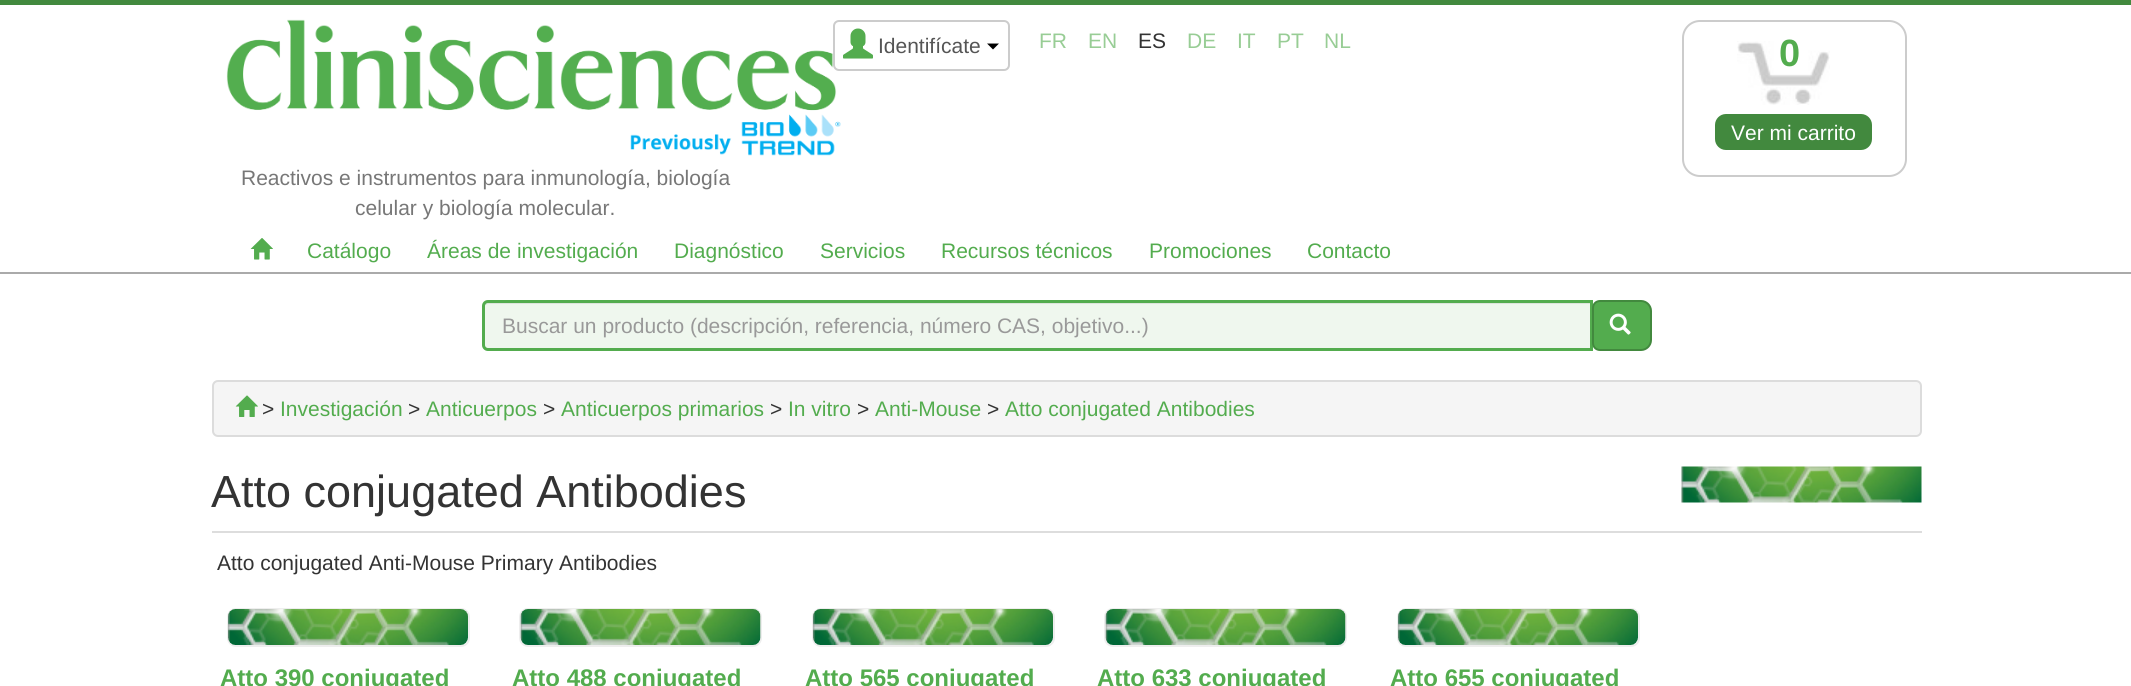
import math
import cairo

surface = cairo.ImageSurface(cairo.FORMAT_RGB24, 2131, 686)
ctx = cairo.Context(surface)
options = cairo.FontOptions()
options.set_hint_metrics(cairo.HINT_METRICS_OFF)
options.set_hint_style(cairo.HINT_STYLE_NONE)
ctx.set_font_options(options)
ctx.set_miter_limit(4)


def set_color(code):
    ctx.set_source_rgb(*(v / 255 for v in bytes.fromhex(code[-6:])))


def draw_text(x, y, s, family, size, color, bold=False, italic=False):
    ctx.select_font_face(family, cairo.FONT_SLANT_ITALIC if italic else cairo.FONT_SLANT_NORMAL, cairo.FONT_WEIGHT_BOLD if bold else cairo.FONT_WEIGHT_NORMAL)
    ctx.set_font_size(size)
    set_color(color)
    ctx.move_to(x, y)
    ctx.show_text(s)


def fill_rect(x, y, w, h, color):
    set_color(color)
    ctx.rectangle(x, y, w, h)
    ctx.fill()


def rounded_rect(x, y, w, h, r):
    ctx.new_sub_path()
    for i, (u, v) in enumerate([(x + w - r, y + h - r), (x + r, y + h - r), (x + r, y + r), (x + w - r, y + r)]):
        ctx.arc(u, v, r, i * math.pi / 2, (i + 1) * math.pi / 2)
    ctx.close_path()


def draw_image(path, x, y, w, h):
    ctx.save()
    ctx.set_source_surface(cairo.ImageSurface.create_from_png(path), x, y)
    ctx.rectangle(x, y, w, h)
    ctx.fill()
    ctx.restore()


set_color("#ffffff")
ctx.paint()
fill_rect(0, 0, 2131, 5, "#42893e")
fill_rect(0, 272, 2131, 2, "#aaaaaa")
draw_image("assets/img3.png", 226, 19, 615, 137)
rounded_rect(834, 21, 175, 49, 5)
set_color("#cccccc")
ctx.stroke()
draw_image("assets/img1.png", 843, 28, 30, 31)
draw_text(878, 53, "Identifícate", "Liberation Sans", 21, "#555555")
set_color("#000000")
ctx.new_path()
ctx.move_to(987, 43.5)
ctx.line_to(999, 43.5)
ctx.line_to(993, 49.5)
ctx.close_path()
ctx.fill()
draw_text(1039, 48, "FR", "Liberation Sans", 21, "#98cd95")
draw_text(1088, 48, "EN", "Liberation Sans", 21, "#98cd95")
draw_text(1138, 48, "ES", "Liberation Sans", 21, "#333333")
draw_text(1187, 48, "DE", "Liberation Sans", 21, "#98cd95")
draw_text(1237, 48, "IT", "Liberation Sans", 21, "#98cd95")
draw_text(1277, 48, "PT", "Liberation Sans", 21, "#98cd95")
draw_text(1324, 48, "NL", "Liberation Sans", 21, "#98cd95")
rounded_rect(1683, 21, 223, 155, 17)
set_color("#cccccc")
ctx.stroke()
draw_image("assets/img2.png", 1737, 41, 93, 64)
draw_text(1779, 66, "0", "Liberation Sans", 38, "#53ac4e", bold=True)
set_color("#42893e")
rounded_rect(1716, 115, 155, 34, 10)
ctx.fill_preserve()
ctx.stroke()
draw_text(1731, 140, "Ver mi carrito", "Liberation Sans", 21, "#ffffff")
draw_text(241, 185, "Reactivos e instrumentos para inmunología, biología", "Liberation Sans", 21, "#777777")
draw_text(355, 215, "celular y biología molecular.", "Liberation Sans", 21, "#777777")
draw_image("assets/img4.png", 250, 238, 23, 22)
draw_text(307, 258, "Catálogo", "Liberation Sans", 21, "#53ac4e")
draw_text(427, 258, "Áreas de investigación", "Liberation Sans", 21, "#53ac4e")
draw_text(674, 258, "Diagnóstico", "Liberation Sans", 21, "#53ac4e")
draw_text(820, 258, "Servicios", "Liberation Sans", 21, "#53ac4e")
draw_text(941, 258, "Recursos técnicos", "Liberation Sans", 21, "#53ac4e")
draw_text(1149, 258, "Promociones", "Liberation Sans", 21, "#53ac4e")
draw_text(1307, 258, "Contacto", "Liberation Sans", 21, "#53ac4e")
set_color("#eff7ee")
ctx.new_path()
ctx.move_to(488, 300)
ctx.line_to(1593, 300)
ctx.line_to(1593, 351)
ctx.line_to(488, 351)
ctx.curve_to(484.5, 351, 482, 348.5, 482, 345)
ctx.line_to(482, 306)
ctx.curve_to(482, 302.5, 484.5, 300, 488, 300)
ctx.close_path()
ctx.fill()
set_color("#dde4dc")
ctx.new_path()
ctx.move_to(488, 304)
ctx.line_to(1590, 304)
ctx.line_to(1590, 303)
ctx.line_to(488, 303)
ctx.curve_to(487, 303, 485, 304, 485, 305)
ctx.close_path()
ctx.fill()
ctx.new_path()
ctx.move_to(488, 301.5)
ctx.line_to(1591.5, 301.5)
ctx.line_to(1591.5, 349.5)
ctx.line_to(488, 349.5)
ctx.curve_to(485.5, 349.5, 483.5, 347.5, 483.5, 345)
ctx.line_to(483.5, 306)
ctx.curve_to(483.5, 303.5, 485.5, 301.5, 488, 301.5)
ctx.close_path()
set_color("#53ac4e")
ctx.set_line_width(3)
ctx.stroke()
draw_text(502, 333, "Buscar un producto (descripción, referencia, número CAS, objetivo...)", "Liberation Sans", 21, "#999999")
set_color("#53ac4e")
ctx.new_path()
ctx.move_to(1600, 301)
ctx.line_to(1641, 301)
ctx.curve_to(1646.5, 301, 1651, 305.5, 1651, 311)
ctx.line_to(1651, 340)
ctx.curve_to(1651, 345.5, 1646.5, 350, 1641, 350)
ctx.line_to(1600, 350)
ctx.curve_to(1596, 350, 1593, 347, 1593, 343)
ctx.line_to(1593, 308)
ctx.curve_to(1593, 304, 1596, 301, 1600, 301)
ctx.close_path()
ctx.fill_preserve()
set_color("#42893e")
ctx.set_line_width(2)
ctx.stroke()
draw_image("assets/img5.png", 1609, 313, 22, 22)
set_color("#f5f5f5")
rounded_rect(213, 381, 1708, 55, 5)
ctx.fill_preserve()
set_color("#dcdcdc")
ctx.stroke()
draw_image("assets/img6.png", 235, 395, 23, 22)
draw_text(262, 416, ">", "Liberation Sans", 21, "#333333")
draw_text(280, 416, "Investigación", "Liberation Sans", 21, "#53ac4e")
draw_text(408, 416, ">", "Liberation Sans", 21, "#333333")
draw_text(426, 416, "Anticuerpos", "Liberation Sans", 21, "#53ac4e")
draw_text(543, 416, ">", "Liberation Sans", 21, "#333333")
draw_text(561, 416, "Anticuerpos primarios", "Liberation Sans", 21, "#53ac4e")
draw_text(770, 416, ">", "Liberation Sans", 21, "#333333")
draw_text(788, 416, "In vitro", "Liberation Sans", 21, "#53ac4e")
draw_text(857, 416, ">", "Liberation Sans", 21, "#333333")
draw_text(875, 416, "Anti-Mouse", "Liberation Sans", 21, "#53ac4e")
draw_text(987, 416, ">", "Liberation Sans", 21, "#333333")
draw_text(1005, 416, "Atto conjugated Antibodies", "Liberation Sans", 21, "#53ac4e")
fill_rect(212, 531, 1710, 2, "#dddddd")
draw_text(211, 507, "Atto conjugated Antibodies", "Liberation Sans", 45, "#333333")
draw_image("assets/img7.png", 1681, 466, 241, 37)
draw_text(217, 570, "Atto conjugated Anti-Mouse Primary Antibodies", "Liberation Sans", 21, "#333333")
rounded_rect(228, 609, 241, 37, 8)
set_color("#eeeeee")
ctx.stroke()
draw_image("assets/img8.png", 228, 609, 240, 36)
draw_text(220, 686, "Atto 390 conjugated", "Liberation Sans", 24, "#53ac4e", bold=True)
rounded_rect(520, 609, 241, 37, 8)
set_color("#eeeeee")
ctx.stroke()
draw_image("assets/img9.png", 520, 609, 241, 36)
draw_text(512, 686, "Atto 488 conjugated", "Liberation Sans", 24, "#53ac4e", bold=True)
rounded_rect(813, 609, 241, 37, 8)
set_color("#eeeeee")
ctx.stroke()
draw_image("assets/img8.png", 813, 609, 240, 36)
draw_text(805, 686, "Atto 565 conjugated", "Liberation Sans", 24, "#53ac4e", bold=True)
rounded_rect(1105, 609, 241, 37, 8)
set_color("#eeeeee")
ctx.stroke()
draw_image("assets/img10.png", 1105, 609, 241, 36)
draw_text(1097, 686, "Atto 633 conjugated", "Liberation Sans", 24, "#53ac4e", bold=True)
rounded_rect(1398, 609, 241, 37, 8)
set_color("#eeeeee")
ctx.stroke()
draw_image("assets/img11.png", 1398, 609, 240, 36)
draw_text(1390, 686, "Atto 655 conjugated", "Liberation Sans", 24, "#53ac4e", bold=True)
surface.write_to_png("output.png")
